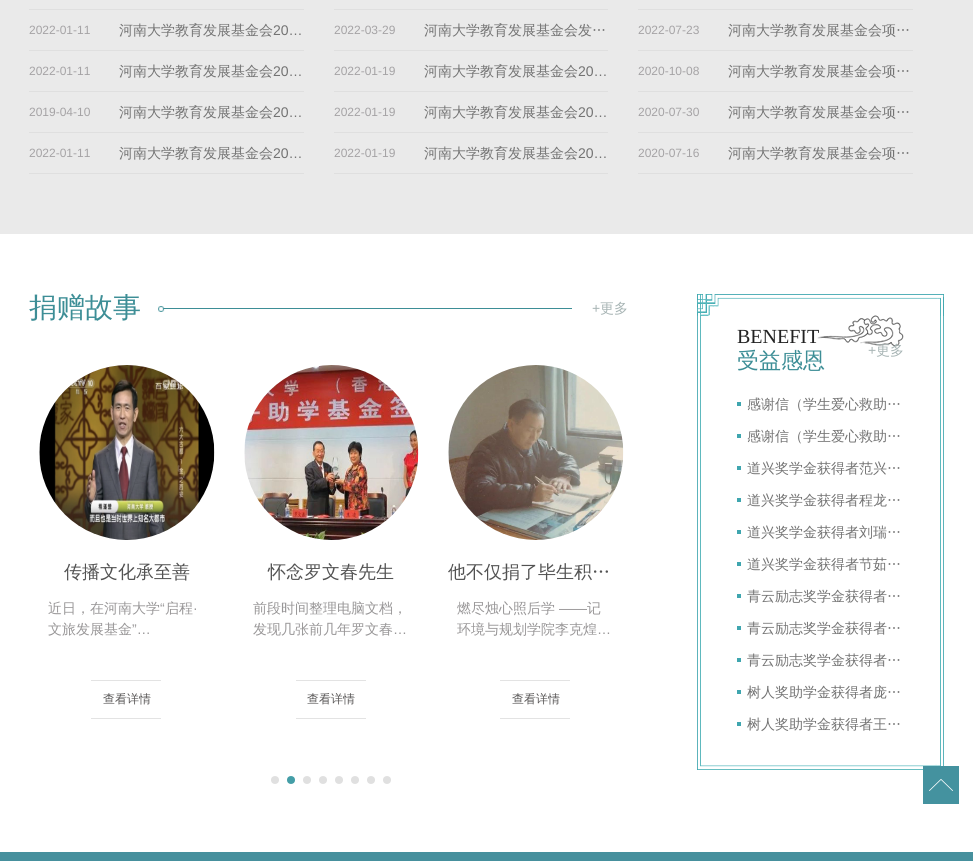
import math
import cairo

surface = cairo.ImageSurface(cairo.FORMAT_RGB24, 973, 861)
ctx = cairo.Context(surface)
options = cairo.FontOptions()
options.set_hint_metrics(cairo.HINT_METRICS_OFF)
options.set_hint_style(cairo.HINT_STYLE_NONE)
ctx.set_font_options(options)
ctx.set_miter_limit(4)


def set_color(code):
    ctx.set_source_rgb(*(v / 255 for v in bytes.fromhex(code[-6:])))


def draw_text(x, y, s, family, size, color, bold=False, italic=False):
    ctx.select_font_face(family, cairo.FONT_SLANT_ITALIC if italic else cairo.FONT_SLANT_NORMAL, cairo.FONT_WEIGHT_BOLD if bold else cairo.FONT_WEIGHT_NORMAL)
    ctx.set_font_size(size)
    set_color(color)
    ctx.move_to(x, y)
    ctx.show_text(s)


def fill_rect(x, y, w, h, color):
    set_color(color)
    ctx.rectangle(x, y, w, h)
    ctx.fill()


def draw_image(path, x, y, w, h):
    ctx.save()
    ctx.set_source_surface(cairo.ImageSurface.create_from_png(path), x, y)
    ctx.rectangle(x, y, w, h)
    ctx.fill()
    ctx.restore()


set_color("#ffffff")
ctx.paint()
fill_rect(0, 0, 973, 234, "#eaeaea")
fill_rect(29, 9, 275, 1, "#dfdfdf")
fill_rect(29, 50, 275, 1, "#dfdfdf")
draw_text(29, 34, "2022-01-11", "Liberation Sans", 12, "#a5a3a5")
draw_text(119, 35, "河南大学教育发展基金会", "WenQuanYi Zen Hei Medium", 14, "#737373")
draw_text(273, 35, "20…", "Liberation Sans", 14, "#737373")
fill_rect(29, 91, 275, 1, "#dfdfdf")
draw_text(29, 75, "2022-01-11", "Liberation Sans", 12, "#a5a3a5")
draw_text(119, 76, "河南大学教育发展基金会", "WenQuanYi Zen Hei Medium", 14, "#737373")
draw_text(273, 76, "20…", "Liberation Sans", 14, "#737373")
fill_rect(29, 132, 275, 1, "#dfdfdf")
draw_text(29, 116, "2019-04-10", "Liberation Sans", 12, "#a5a3a5")
draw_text(119, 117, "河南大学教育发展基金会", "WenQuanYi Zen Hei Medium", 14, "#737373")
draw_text(273, 117, "20…", "Liberation Sans", 14, "#737373")
fill_rect(29, 173, 275, 1, "#dfdfdf")
draw_text(29, 157, "2022-01-11", "Liberation Sans", 12, "#a5a3a5")
draw_text(119, 158, "河南大学教育发展基金会", "WenQuanYi Zen Hei Medium", 14, "#737373")
draw_text(273, 158, "20…", "Liberation Sans", 14, "#737373")
fill_rect(334, 9, 274, 1, "#dfdfdf")
fill_rect(334, 50, 274, 1, "#dfdfdf")
draw_text(334, 34, "2022-03-29", "Liberation Sans", 12, "#a5a3a5")
draw_text(424, 35, "河南大学教育发展基金会发…", "WenQuanYi Zen Hei Medium", 14, "#737373")
fill_rect(334, 91, 274, 1, "#dfdfdf")
draw_text(334, 75, "2022-01-19", "Liberation Sans", 12, "#a5a3a5")
draw_text(424, 76, "河南大学教育发展基金会", "WenQuanYi Zen Hei Medium", 14, "#737373")
draw_text(578, 76, "20…", "Liberation Sans", 14, "#737373")
fill_rect(334, 132, 274, 1, "#dfdfdf")
draw_text(334, 116, "2022-01-19", "Liberation Sans", 12, "#a5a3a5")
draw_text(424, 117, "河南大学教育发展基金会", "WenQuanYi Zen Hei Medium", 14, "#737373")
draw_text(578, 117, "20…", "Liberation Sans", 14, "#737373")
fill_rect(334, 173, 274, 1, "#dfdfdf")
draw_text(334, 157, "2022-01-19", "Liberation Sans", 12, "#a5a3a5")
draw_text(424, 158, "河南大学教育发展基金会", "WenQuanYi Zen Hei Medium", 14, "#737373")
draw_text(578, 158, "20…", "Liberation Sans", 14, "#737373")
fill_rect(638, 9, 275, 1, "#dfdfdf")
fill_rect(638, 50, 275, 1, "#dfdfdf")
draw_text(638, 34, "2022-07-23", "Liberation Sans", 12, "#a5a3a5")
draw_text(728, 35, "河南大学教育发展基金会项…", "WenQuanYi Zen Hei Medium", 14, "#737373")
fill_rect(638, 91, 275, 1, "#dfdfdf")
draw_text(638, 75, "2020-10-08", "Liberation Sans", 12, "#a5a3a5")
draw_text(728, 76, "河南大学教育发展基金会项…", "WenQuanYi Zen Hei Medium", 14, "#737373")
fill_rect(638, 132, 275, 1, "#dfdfdf")
draw_text(638, 116, "2020-07-30", "Liberation Sans", 12, "#a5a3a5")
draw_text(728, 117, "河南大学教育发展基金会项…", "WenQuanYi Zen Hei Medium", 14, "#737373")
fill_rect(638, 173, 275, 1, "#dfdfdf")
draw_text(638, 157, "2020-07-16", "Liberation Sans", 12, "#a5a3a5")
draw_text(728, 158, "河南大学教育发展基金会项…", "WenQuanYi Zen Hei Medium", 14, "#737373")
draw_image("assets/img1.png", 158, 306, 414, 6)
draw_text(29, 317, "捐赠故事", "WenQuanYi Zen Hei Medium", 28, "#3d8e96")
draw_text(592, 313, "+", "Liberation Sans", 14, "#a7b4b4")
draw_text(600, 313, "更多", "WenQuanYi Zen Hei Medium", 14, "#a7b4b4")
draw_image("assets/img2.png", 39, 365, 176, 175)
draw_text(64, 578, "传播文化承至善", "WenQuanYi Zen Hei Medium", 18, "#525252")
draw_text(48, 613, "近日，在河南大学", "WenQuanYi Zen Hei Medium", 14, "#989697")
draw_text(160, 613, "“", "Liberation Sans", 14, "#989697")
draw_text(165, 613, "启程", "WenQuanYi Zen Hei Medium", 14, "#989697")
draw_text(193, 613, "·", "Liberation Sans", 14, "#989697")
draw_text(48, 634, "文旅发展基金", "WenQuanYi Zen Hei Medium", 14, "#989697")
draw_text(132, 634, "”…", "Liberation Sans", 14, "#989697")
fill_rect(91, 680, 70, 1, "#e3e3e3")
fill_rect(91, 718, 70, 1, "#e3e3e3")
draw_text(103, 703, "查看详情", "WenQuanYi Zen Hei Medium", 12, "#595757")
draw_image("assets/img3.png", 244, 365, 175, 175)
draw_text(268, 578, "怀念罗文春先生", "WenQuanYi Zen Hei Medium", 18, "#525252")
draw_text(253, 613, "前段时间整理电脑文档，", "WenQuanYi Zen Hei Medium", 14, "#989697")
draw_text(253, 634, "发现几张前几年罗文春", "WenQuanYi Zen Hei Medium", 14, "#989697")
draw_text(393, 634, "…", "Liberation Sans", 14, "#989697")
fill_rect(296, 680, 70, 1, "#e3e3e3")
fill_rect(296, 718, 70, 1, "#e3e3e3")
draw_text(307, 703, "查看详情", "WenQuanYi Zen Hei Medium", 12, "#595757")
draw_image("assets/img4.png", 448, 365, 176, 175)
draw_text(448, 578, "他不仅捐了毕生积…", "WenQuanYi Zen Hei Medium", 18, "#525252")
draw_text(457, 613, "燃尽烛心照后学", "WenQuanYi Zen Hei Medium", 14, "#989697")
draw_text(559, 613, "——", "Liberation Sans", 14, "#989697")
draw_text(587, 613, "记", "WenQuanYi Zen Hei Medium", 14, "#989697")
draw_text(457, 634, "环境与规划学院李克煌", "WenQuanYi Zen Hei Medium", 14, "#989697")
draw_text(597, 634, "…", "Liberation Sans", 14, "#989697")
fill_rect(500, 680, 70, 1, "#e3e3e3")
fill_rect(500, 718, 70, 1, "#e3e3e3")
draw_text(512, 703, "查看详情", "WenQuanYi Zen Hei Medium", 12, "#595757")
set_color("#e0e0e0")
ctx.new_path()
ctx.arc(275, 780, 4, 0, 2 * math.pi)
ctx.fill()
set_color("#449ea7")
ctx.arc(291, 780, 4, 0, 2 * math.pi)
ctx.fill()
set_color("#e0e0e0")
ctx.arc(307, 780, 4, 0, 2 * math.pi)
ctx.fill()
ctx.arc(323, 780, 4, 0, 2 * math.pi)
ctx.fill()
ctx.arc(339, 780, 4, 0, 2 * math.pi)
ctx.fill()
ctx.arc(355, 780, 4, 0, 2 * math.pi)
ctx.fill()
ctx.arc(371, 780, 4, 0, 2 * math.pi)
ctx.fill()
ctx.arc(387, 780, 4, 0, 2 * math.pi)
ctx.fill()
draw_image("assets/img5.png", 697, 294, 247, 470)
draw_image("assets/img6.png", 697, 294, 247, 22)
draw_image("assets/img7.png", 817, 315, 87, 32)
draw_text(737, 343, "BENEFIT", "Liberation Serif", 20, "#222222")
draw_text(737, 368, "受益感恩", "WenQuanYi Zen Hei Medium", 22, "#3d8e96")
draw_text(868, 355, "+", "Liberation Sans", 14, "#a7b4b4")
draw_text(876, 355, "更多", "WenQuanYi Zen Hei Medium", 14, "#a7b4b4")
fill_rect(737, 402, 4, 4, "#3fa6af")
draw_text(747, 409, "感谢信（学生爱心救助…", "WenQuanYi Zen Hei Medium", 14, "#737373")
fill_rect(737, 434, 4, 4, "#3fa6af")
draw_text(747, 441, "感谢信（学生爱心救助…", "WenQuanYi Zen Hei Medium", 14, "#737373")
fill_rect(737, 466, 4, 4, "#3fa6af")
draw_text(747, 473, "道兴奖学金获得者范兴…", "WenQuanYi Zen Hei Medium", 14, "#737373")
fill_rect(737, 498, 4, 4, "#3fa6af")
draw_text(747, 505, "道兴奖学金获得者程龙…", "WenQuanYi Zen Hei Medium", 14, "#737373")
fill_rect(737, 530, 4, 4, "#3fa6af")
draw_text(747, 537, "道兴奖学金获得者刘瑞…", "WenQuanYi Zen Hei Medium", 14, "#737373")
fill_rect(737, 562, 4, 4, "#3fa6af")
draw_text(747, 569, "道兴奖学金获得者节茹…", "WenQuanYi Zen Hei Medium", 14, "#737373")
fill_rect(737, 594, 4, 4, "#3fa6af")
draw_text(747, 601, "青云励志奖学金获得者…", "WenQuanYi Zen Hei Medium", 14, "#737373")
fill_rect(737, 626, 4, 4, "#3fa6af")
draw_text(747, 633, "青云励志奖学金获得者…", "WenQuanYi Zen Hei Medium", 14, "#737373")
fill_rect(737, 658, 4, 4, "#3fa6af")
draw_text(747, 665, "青云励志奖学金获得者…", "WenQuanYi Zen Hei Medium", 14, "#737373")
fill_rect(737, 690, 4, 4, "#3fa6af")
draw_text(747, 697, "树人奖助学金获得者庞…", "WenQuanYi Zen Hei Medium", 14, "#737373")
fill_rect(737, 722, 4, 4, "#3fa6af")
draw_text(747, 729, "树人奖助学金获得者王…", "WenQuanYi Zen Hei Medium", 14, "#737373")
draw_image("assets/img8.png", 697, 764, 247, 6)
fill_rect(923, 766, 36, 38, "#44929f")
draw_image("assets/img9.png", 929, 779, 24, 12)
fill_rect(0, 852, 973, 9, "#46909d")
surface.write_to_png("output.png")
